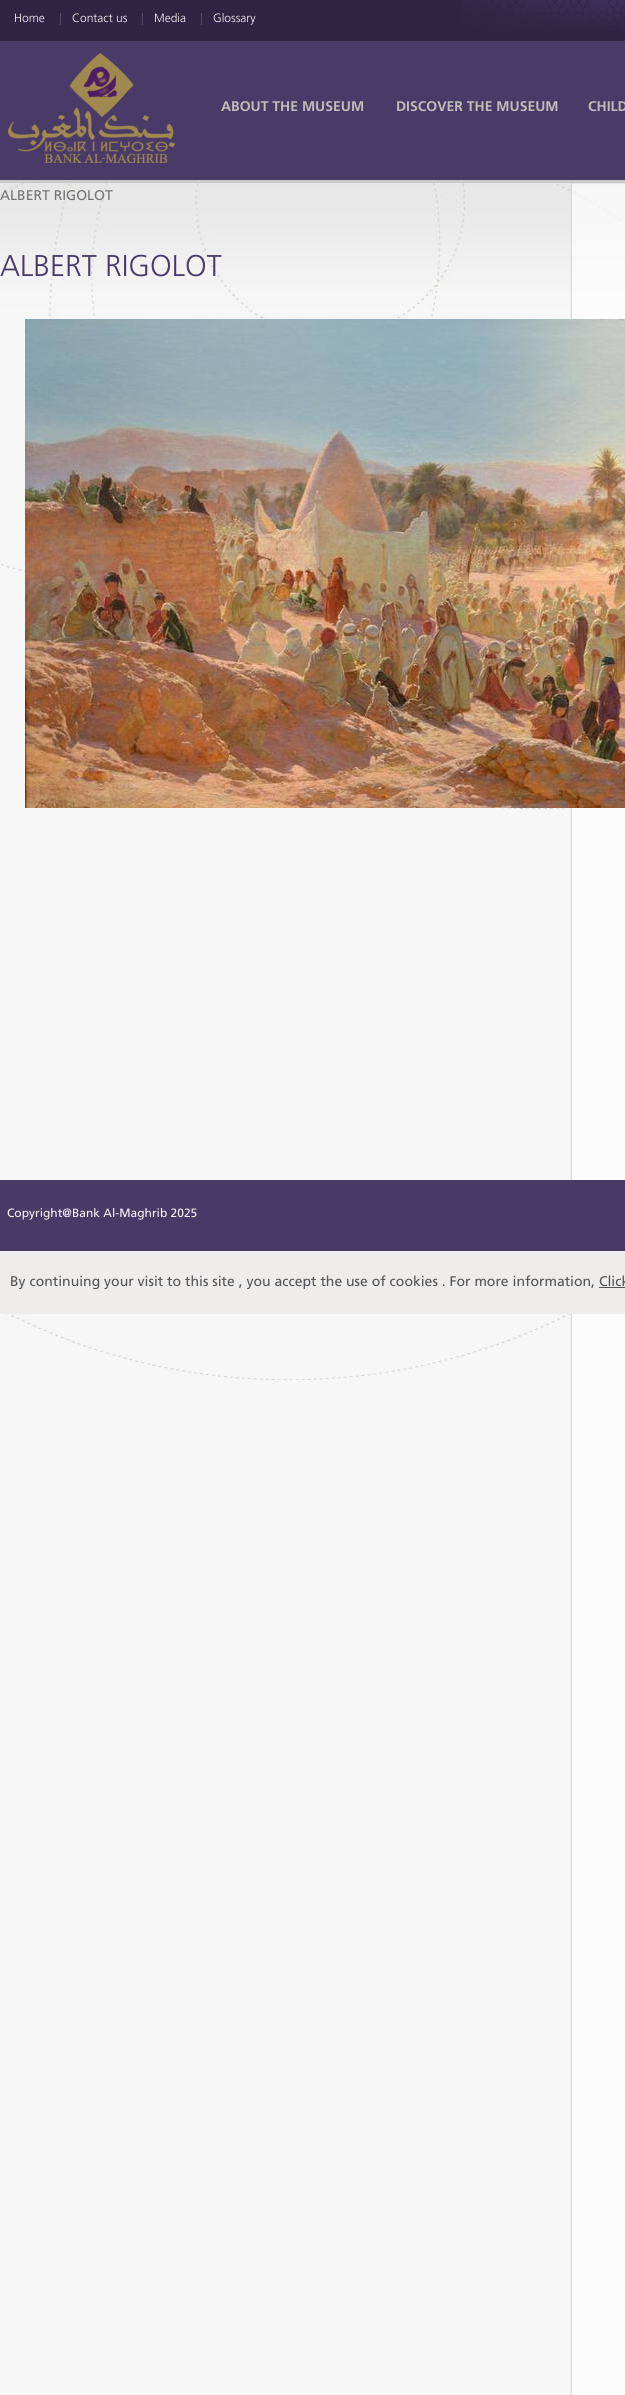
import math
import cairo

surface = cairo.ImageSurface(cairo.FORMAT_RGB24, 625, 2395)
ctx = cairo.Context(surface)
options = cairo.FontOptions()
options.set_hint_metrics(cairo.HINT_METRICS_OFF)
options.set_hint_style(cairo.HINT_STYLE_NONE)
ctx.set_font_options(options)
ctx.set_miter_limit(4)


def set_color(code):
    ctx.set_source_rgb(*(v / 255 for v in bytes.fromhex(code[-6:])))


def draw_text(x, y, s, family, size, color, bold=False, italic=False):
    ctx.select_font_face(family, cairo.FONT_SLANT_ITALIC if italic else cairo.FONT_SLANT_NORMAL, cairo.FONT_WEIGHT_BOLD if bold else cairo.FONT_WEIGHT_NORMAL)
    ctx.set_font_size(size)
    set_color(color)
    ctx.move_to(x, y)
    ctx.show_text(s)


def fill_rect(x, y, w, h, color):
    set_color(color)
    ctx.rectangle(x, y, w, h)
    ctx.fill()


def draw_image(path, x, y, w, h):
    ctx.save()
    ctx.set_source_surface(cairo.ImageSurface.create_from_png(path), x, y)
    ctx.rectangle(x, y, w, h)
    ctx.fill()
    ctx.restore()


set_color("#ffffff")
ctx.paint()
draw_image("assets/img1.png", 0, 180, 625, 2215)
fill_rect(0, 0, 625, 41, "#2f2443")
draw_image("assets/img2.png", 461, 0, 164, 31)
draw_text(14, 22, "Home", "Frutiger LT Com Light", 12, "#f7f7f7")
draw_text(59, 22, "|", "Frutiger LT Com Light", 12, "#5b526b")
draw_text(72, 22, "Contact us", "Frutiger LT Com Light", 12, "#f7f7f7")
draw_text(141, 22, "|", "Frutiger LT Com Light", 12, "#5b526b")
draw_text(154, 22, "Media", "Frutiger LT Com Light", 12, "#f7f7f7")
draw_text(200, 22, "|", "Frutiger LT Com Light", 12, "#5b526b")
draw_text(213, 22, "Glossary", "Frutiger LT Com Light", 12, "#f7f7f7")
fill_rect(0, 41, 625, 139, "#4a3a67")
draw_image("assets/img3.png", 8, 53, 167, 110)
draw_text(221, 111, "ABOUT THE MUSEUM", "Frutiger LT Com", 14, "#bfbdb8", bold=True)
draw_text(396, 111, "DISCOVER THE MUSEUM", "Frutiger LT Com", 14, "#bfbdb8", bold=True)
draw_text(588, 111, "CHILD", "Frutiger LT Com", 14, "#bfbdb8", bold=True)
draw_text(0, 200, "ALBERT RIGOLOT", "Frutiger", 14, "#737373")
draw_text(0, 276, "ALBERT RIGOLOT", "Frutiger LT Com Light", 30, "#493966")
draw_image("assets/img4.png", 25, 319, 600, 489)
fill_rect(0, 1180, 625, 71, "#493966")
draw_text(7, 1217, "Copyright@Bank Al-Maghrib 2025", "Frutiger", 12, "#f7f7f7")
fill_rect(0, 1251, 625, 63, "#eeedec")
draw_text(10, 1286, "By continuing your visit to this site , you accept the use of cookies . For more information, Click", "Frutiger", 14, "#525457")
fill_rect(599, 1287, 26, 1, "#525457")
surface.write_to_png("output.png")
